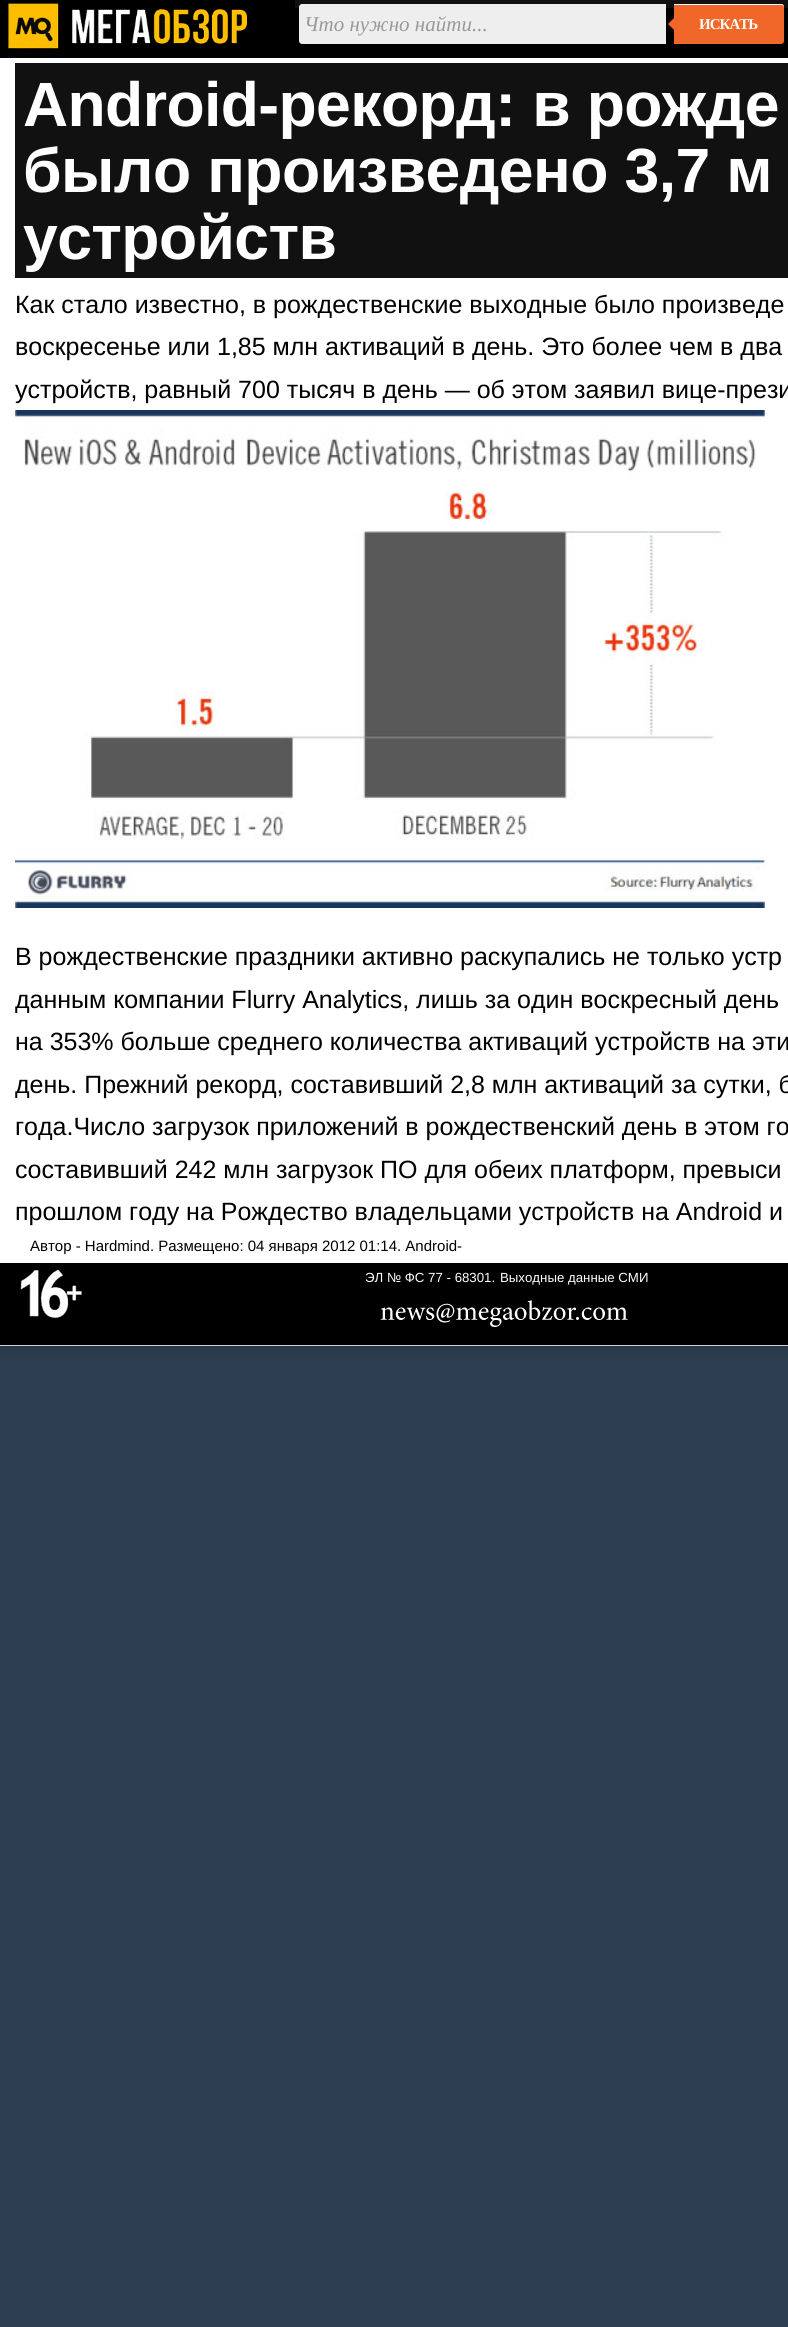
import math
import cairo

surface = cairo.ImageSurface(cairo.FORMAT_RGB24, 788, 2327)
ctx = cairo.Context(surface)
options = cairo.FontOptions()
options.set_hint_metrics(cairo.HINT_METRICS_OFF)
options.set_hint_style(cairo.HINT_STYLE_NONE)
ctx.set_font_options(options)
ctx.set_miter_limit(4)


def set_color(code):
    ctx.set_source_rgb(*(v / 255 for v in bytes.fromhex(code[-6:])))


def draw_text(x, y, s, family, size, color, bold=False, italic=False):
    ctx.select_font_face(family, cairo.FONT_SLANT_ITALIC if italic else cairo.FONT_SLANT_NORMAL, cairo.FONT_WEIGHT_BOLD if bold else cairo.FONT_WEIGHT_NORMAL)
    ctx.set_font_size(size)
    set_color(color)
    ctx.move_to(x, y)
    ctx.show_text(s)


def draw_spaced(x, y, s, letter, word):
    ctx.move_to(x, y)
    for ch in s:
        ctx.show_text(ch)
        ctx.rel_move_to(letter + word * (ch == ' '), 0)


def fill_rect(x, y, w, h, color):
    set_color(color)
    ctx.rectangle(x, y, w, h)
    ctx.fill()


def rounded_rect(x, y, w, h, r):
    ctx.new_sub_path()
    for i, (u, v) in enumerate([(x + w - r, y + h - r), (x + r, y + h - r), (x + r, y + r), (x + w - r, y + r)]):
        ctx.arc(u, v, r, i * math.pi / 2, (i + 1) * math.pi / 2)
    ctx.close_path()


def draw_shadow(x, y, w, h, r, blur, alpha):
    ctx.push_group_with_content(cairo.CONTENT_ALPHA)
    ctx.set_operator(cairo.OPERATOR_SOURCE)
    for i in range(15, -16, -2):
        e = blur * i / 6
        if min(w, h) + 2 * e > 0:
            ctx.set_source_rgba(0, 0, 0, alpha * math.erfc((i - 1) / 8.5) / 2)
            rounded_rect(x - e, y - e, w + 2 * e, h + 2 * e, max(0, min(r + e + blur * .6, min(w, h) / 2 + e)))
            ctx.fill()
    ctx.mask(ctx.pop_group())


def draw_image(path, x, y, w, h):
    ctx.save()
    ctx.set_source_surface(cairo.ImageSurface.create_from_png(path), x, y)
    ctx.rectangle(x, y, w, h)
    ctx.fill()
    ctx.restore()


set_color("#2c3e50")
ctx.paint()
set_color("#000000")
draw_shadow(0, 0, 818, 1346, 0, 10, 0.2)
fill_rect(0, 58, 788, 1205, "#ffffff")
fill_rect(0, 1345, 788, 1, "#cfcfcf")
fill_rect(0, 0, 788, 58, "#000000")
draw_image("assets/img1.png", 8, 3, 240, 46)
fill_rect(295, 0, 493, 8, "#111111")
set_color("#eeeeee")
ctx.new_path()
ctx.move_to(302, 4)
ctx.line_to(666, 4)
ctx.line_to(666, 44)
ctx.line_to(302, 44)
ctx.curve_to(300.5, 44, 299, 42.5, 299, 41)
ctx.line_to(299, 7)
ctx.curve_to(299, 5.5, 300.5, 4, 302, 4)
ctx.close_path()
ctx.fill()
draw_text(304, 31, "Что нужно найти...", "Liberation Serif", 21, "#999999", italic=True)
set_color("#f16729")
ctx.new_path()
ctx.move_to(674, 4)
ctx.line_to(781, 4)
ctx.curve_to(782.5, 4, 784, 5.5, 784, 7)
ctx.line_to(784, 41)
ctx.curve_to(784, 42.5, 782.5, 44, 781, 44)
ctx.line_to(674, 44)
ctx.close_path()
ctx.fill()
set_color("#ffffff")
ctx.new_path()
ctx.move_to(674, 5)
ctx.line_to(781, 5)
ctx.curve_to(783, 5, 784, 6, 784, 8)
ctx.line_to(784, 7)
ctx.curve_to(784, 5, 783, 4, 781, 4)
ctx.line_to(674, 4)
ctx.close_path()
ctx.fill()
set_color("#f16729")
ctx.new_path()
ctx.move_to(676, 16)
ctx.line_to(676, 32)
ctx.line_to(668, 24)
ctx.close_path()
ctx.fill()
ctx.select_font_face("Liberation Serif", cairo.FONT_SLANT_NORMAL, cairo.FONT_WEIGHT_BOLD)
ctx.set_font_size(15)
set_color("#ffffff")
draw_spaced(699, 29, "ИСКАТЬ", -1, 0)
fill_rect(15, 63, 773, 215, "#111111")
ctx.select_font_face("Liberation Sans", cairo.FONT_SLANT_NORMAL, cairo.FONT_WEIGHT_BOLD)
ctx.set_font_size(62.5)
set_color("#ffffff")
draw_spaced(23, 126, "Android-рекорд: в рожде", -0.6, 0)
draw_spaced(23, 192, "было произведено 3,7 м", -0.6, 0)
draw_spaced(23, 259, "устройств", -0.6, 0)
draw_text(15, 313, "Как стало известно, в рождественские выходные было произведе", "Liberation Sans", 25, "#000000")
draw_text(15, 355, "воскресенье или 1,85 млн активаций в день. Это более чем в два", "Liberation Sans", 25, "#000000")
draw_text(15, 398, "устройств, равный 700 тысяч в день — об этом заявил вице-прези", "Liberation Sans", 25, "#000000")
draw_image("assets/img2.png", 15, 410, 750, 498)
draw_text(15, 965, "В рождественские праздники активно раскупались не только устр", "Liberation Sans", 25, "#000000")
draw_text(15, 1008, "данным компании Flurry Analytics, лишь за один воскресный день", "Liberation Sans", 25, "#000000")
draw_text(15, 1050, "на 353% больше среднего количества активаций устройств на эти", "Liberation Sans", 25, "#000000")
draw_text(15, 1093, "день. Прежний рекорд, составивший 2,8 млн активаций за сутки, б", "Liberation Sans", 25, "#000000")
draw_text(15, 1135, "года.Число загрузок приложений в рождественский день в этом го", "Liberation Sans", 25, "#000000")
draw_text(15, 1178, "составивший 242 млн загрузок ПО для обеих платформ, превыси", "Liberation Sans", 25, "#000000")
draw_text(15, 1220, "прошлом году на Рождество владельцами устройств на Android и", "Liberation Sans", 25, "#000000")
draw_text(30, 1251, "Автор - Hardmind. Размещено: 04 января 2012 01:14. Android-", "Liberation Sans", 15, "#000000")
fill_rect(0, 1263, 788, 82, "#000000")
draw_image("assets/img3.png", 20, 1269, 62, 50)
draw_text(365, 1282, "ЭЛ № ФС 77 - 68301.", "Liberation Sans", 13.25, "#ffffff")
draw_text(500, 1282, "Выходные данные СМИ", "Liberation Sans", 13.25, "#ffffff")
draw_image("assets/img4.png", 380, 1300, 248, 27)
surface.write_to_png("output.png")
